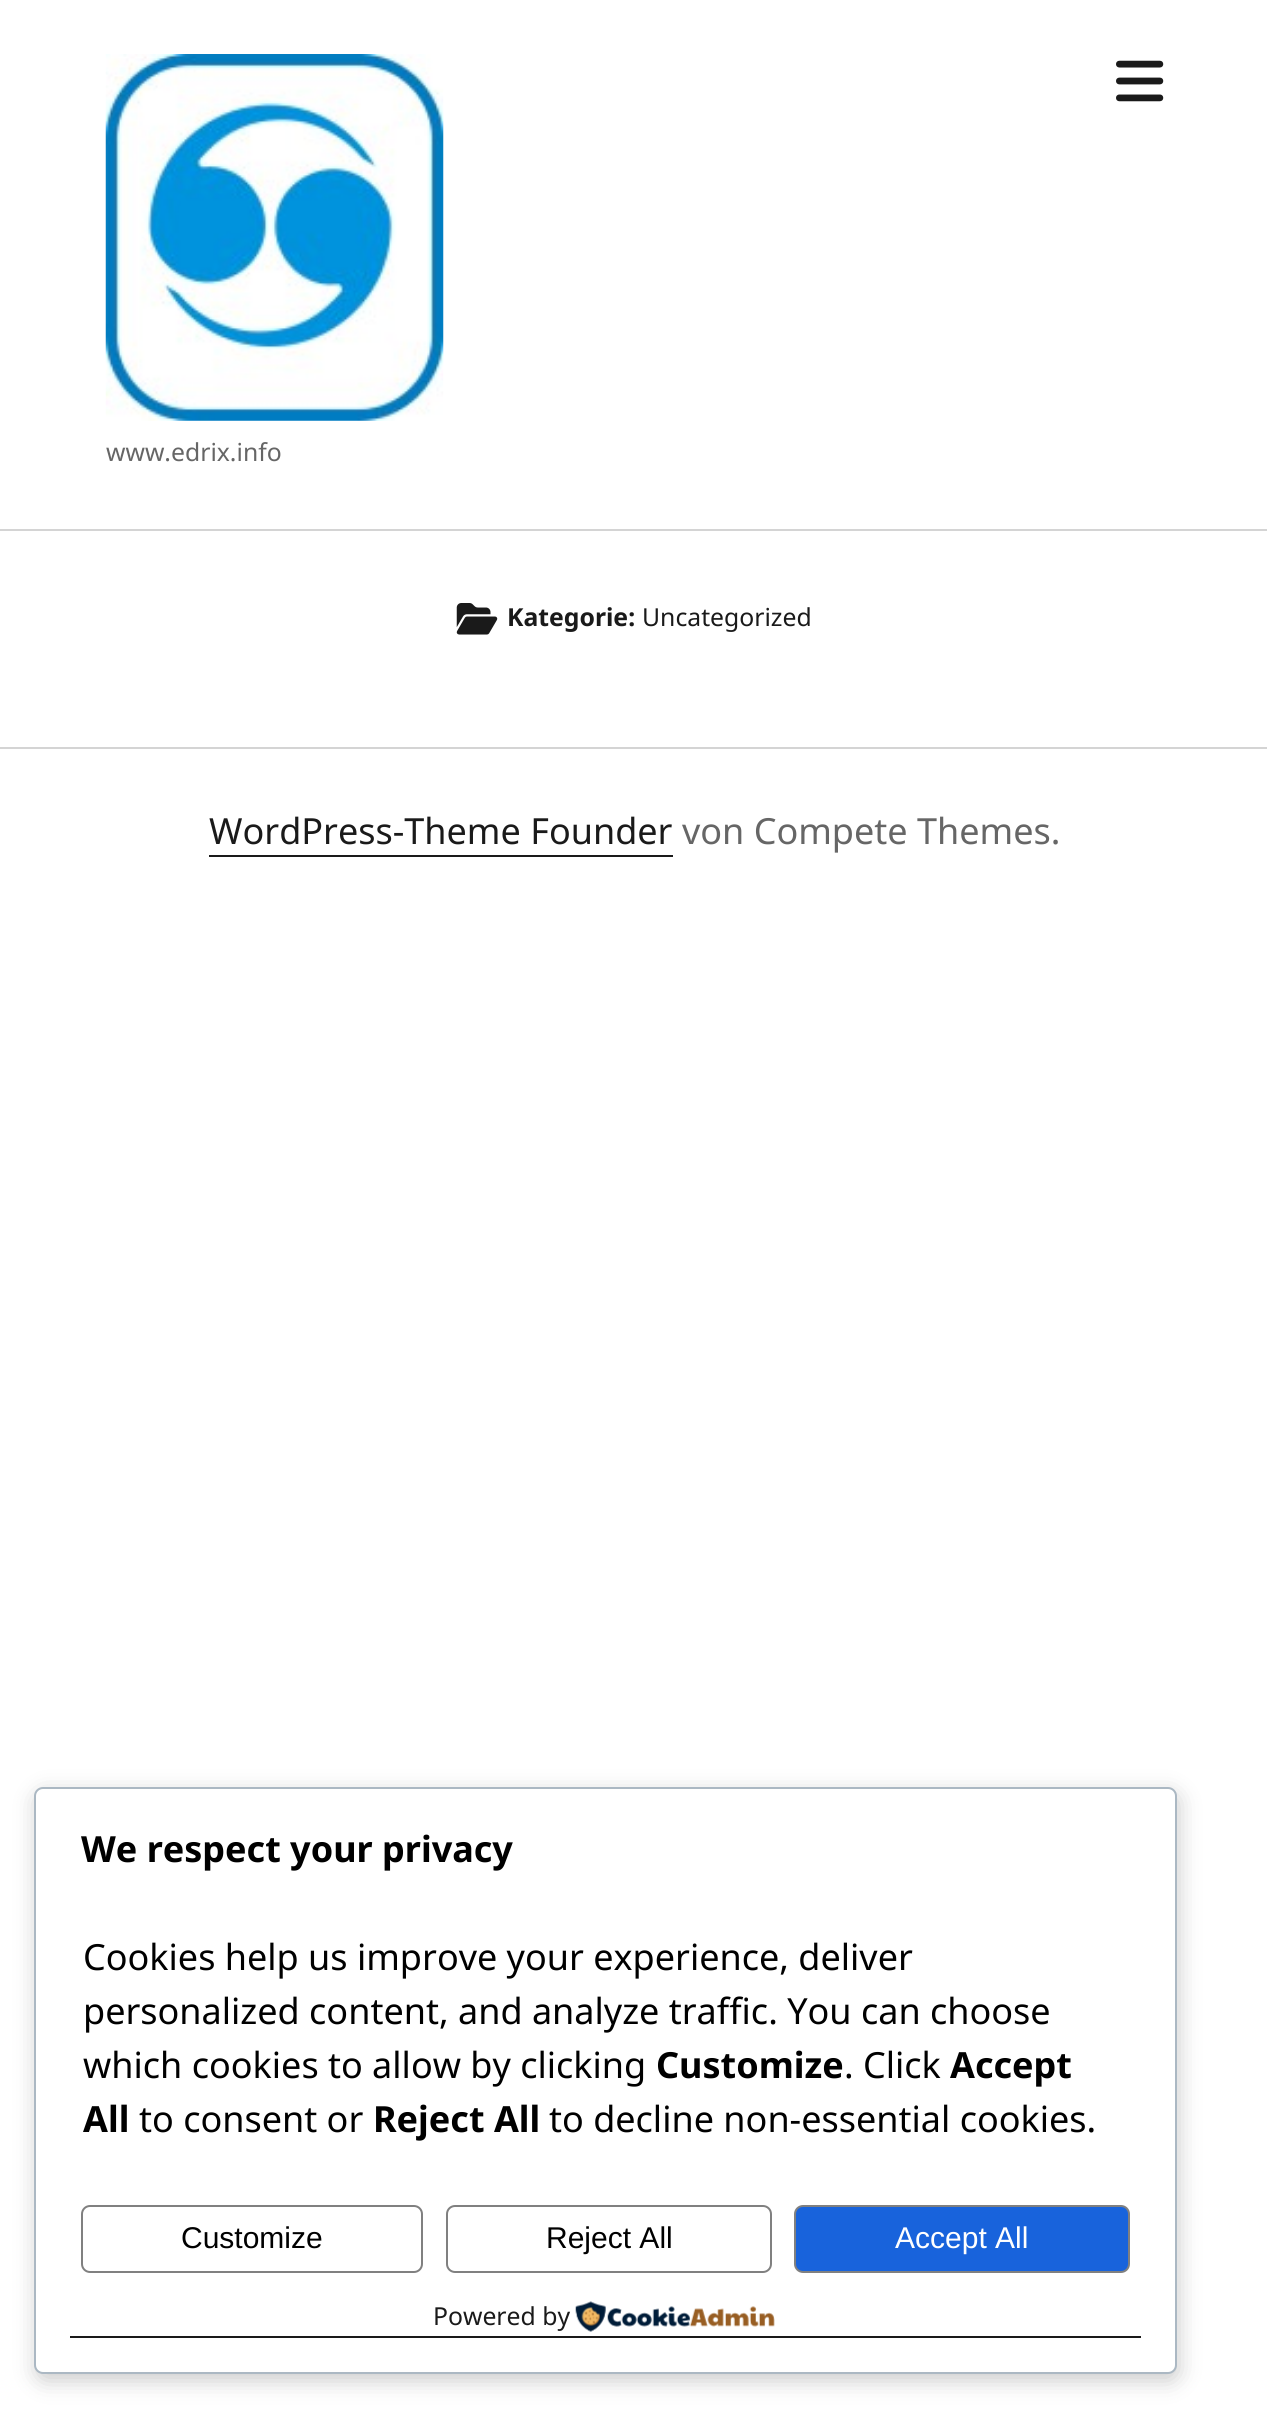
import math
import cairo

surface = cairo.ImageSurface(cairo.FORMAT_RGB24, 1267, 2418)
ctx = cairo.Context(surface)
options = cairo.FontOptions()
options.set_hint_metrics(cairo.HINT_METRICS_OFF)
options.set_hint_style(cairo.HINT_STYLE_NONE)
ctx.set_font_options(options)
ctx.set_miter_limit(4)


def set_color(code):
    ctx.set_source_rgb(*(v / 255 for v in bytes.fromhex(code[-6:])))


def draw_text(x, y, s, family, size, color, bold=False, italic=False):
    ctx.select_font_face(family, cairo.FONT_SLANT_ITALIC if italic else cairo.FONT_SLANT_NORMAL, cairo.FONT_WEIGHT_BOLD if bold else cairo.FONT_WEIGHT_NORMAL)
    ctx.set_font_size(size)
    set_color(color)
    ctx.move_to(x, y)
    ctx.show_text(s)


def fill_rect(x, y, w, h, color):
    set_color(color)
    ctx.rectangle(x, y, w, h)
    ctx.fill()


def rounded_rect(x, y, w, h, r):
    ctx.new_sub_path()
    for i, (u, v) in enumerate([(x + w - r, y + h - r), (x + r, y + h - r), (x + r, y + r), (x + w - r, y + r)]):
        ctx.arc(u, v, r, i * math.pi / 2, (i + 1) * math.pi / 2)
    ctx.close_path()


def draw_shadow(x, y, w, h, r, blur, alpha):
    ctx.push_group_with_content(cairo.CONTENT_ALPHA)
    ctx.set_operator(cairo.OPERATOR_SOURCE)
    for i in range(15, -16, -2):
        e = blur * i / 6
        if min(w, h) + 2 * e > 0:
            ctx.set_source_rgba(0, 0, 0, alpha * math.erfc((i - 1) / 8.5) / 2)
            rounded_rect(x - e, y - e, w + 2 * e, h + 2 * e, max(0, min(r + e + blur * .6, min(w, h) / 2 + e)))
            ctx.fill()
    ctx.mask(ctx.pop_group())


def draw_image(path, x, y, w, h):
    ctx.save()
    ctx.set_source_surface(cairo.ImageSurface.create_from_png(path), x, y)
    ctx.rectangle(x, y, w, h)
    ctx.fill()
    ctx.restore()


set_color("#ffffff")
ctx.paint()
fill_rect(0, 529, 1267, 2, "#d4d4d4")
draw_image("assets/img1.png", 1116, 60, 48, 42)
draw_image("assets/img2.png", 105, 54, 339, 367)
draw_text(106, 461, "www.edrix.info", "Noto Sans", 24.75, "#666666")
draw_image("assets/img3.png", 456, 603, 42, 32)
draw_text(507, 626, "Kategorie:", "Noto Sans", 24.75, "#1a1a1a", bold=True)
draw_text(642, 626, "Uncategorized", "Noto Sans", 24.75, "#1a1a1a")
fill_rect(0, 747, 1267, 2, "#d4d4d4")
draw_text(209, 844, "WordPress-Theme Founder", "Noto Sans", 36, "#1a1a1a")
fill_rect(209, 855, 464, 2, "#1a1a1a")
draw_text(682, 844, "von Compete Themes.", "Noto Sans", 36, "#666666")
set_color("#000000")
draw_shadow(36, 1793, 1143, 588, 9, 11, 0.2)
set_color("#ffffff")
rounded_rect(35, 1788, 1141, 585, 8)
ctx.fill_preserve()
set_color("#abb8c3")
ctx.stroke()
draw_text(81, 1862, "We respect your privacy", "Noto Sans", 36, "#000000", bold=True)
draw_text(83, 1970, "Cookies help us improve your experience, deliver", "Noto Sans", 36, "#000000")
draw_text(83, 2024, "personalized content, and analyze traffic. You can choose", "Noto Sans", 36, "#000000")
draw_text(83, 2078, "which cookies to allow by clicking", "Noto Sans", 36, "#000000")
draw_text(656, 2078, "Customize", "Noto Sans", 36, "#000000", bold=True)
draw_text(844, 2078, ". Click", "Noto Sans", 36, "#000000")
draw_text(950, 2078, "Accept", "Noto Sans", 36, "#000000", bold=True)
draw_text(83, 2132, "All", "Noto Sans", 36, "#000000", bold=True)
draw_text(139, 2132, "to consent or", "Noto Sans", 36, "#000000")
draw_text(373, 2132, "Reject All", "Noto Sans", 36, "#000000", bold=True)
draw_text(549, 2132, "to decline non-essential cookies.", "Noto Sans", 36, "#000000")
rounded_rect(82, 2206, 340, 66, 8)
set_color("#808080")
ctx.stroke()
draw_text(181, 2248, "Customize", "Liberation Sans", 30, "#000000")
rounded_rect(447, 2206, 324, 66, 8)
set_color("#808080")
ctx.stroke()
draw_text(546, 2248, "Reject All", "Liberation Sans", 30, "#000000")
set_color("#1863dc")
rounded_rect(795, 2206, 334, 66, 8)
ctx.fill_preserve()
set_color("#808080")
ctx.stroke()
draw_text(895, 2248, "Accept All", "Liberation Sans", 30, "#ffffff")
fill_rect(70, 2336, 1071, 2, "#1a1a1a")
draw_text(433, 2325, "Powered by", "Noto Sans", 24.75, "#1a1a1a")
draw_image("assets/img4.png", 575, 2301, 200, 31)
surface.write_to_png("output.png")
